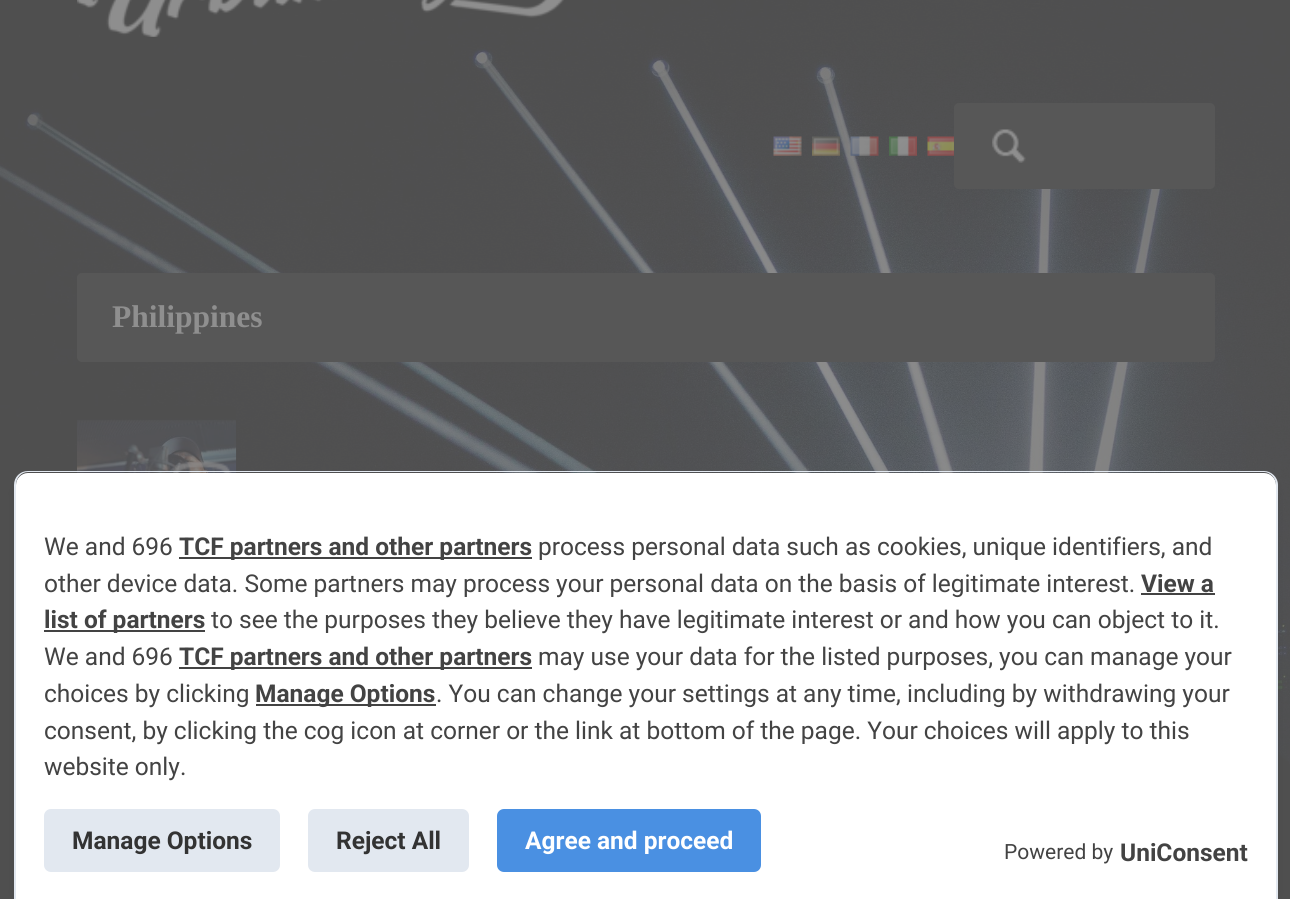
import math
import cairo

surface = cairo.ImageSurface(cairo.FORMAT_RGB24, 1290, 899)
ctx = cairo.Context(surface)
options = cairo.FontOptions()
options.set_hint_metrics(cairo.HINT_METRICS_OFF)
options.set_hint_style(cairo.HINT_STYLE_NONE)
ctx.set_font_options(options)
ctx.set_miter_limit(4)


def set_color(code):
    ctx.set_source_rgb(*(v / 255 for v in bytes.fromhex(code[-6:])))


def draw_text(x, y, s, family, size, color, bold=False, italic=False):
    ctx.select_font_face(family, cairo.FONT_SLANT_ITALIC if italic else cairo.FONT_SLANT_NORMAL, cairo.FONT_WEIGHT_BOLD if bold else cairo.FONT_WEIGHT_NORMAL)
    ctx.set_font_size(size)
    set_color(color)
    ctx.move_to(x, y)
    ctx.show_text(s)


def fill_rect(x, y, w, h, color):
    set_color(color)
    ctx.rectangle(x, y, w, h)
    ctx.fill()


def rounded_rect(x, y, w, h, r):
    ctx.new_sub_path()
    for i, (u, v) in enumerate([(x + w - r, y + h - r), (x + r, y + h - r), (x + r, y + r), (x + w - r, y + r)]):
        ctx.arc(u, v, r, i * math.pi / 2, (i + 1) * math.pi / 2)
    ctx.close_path()


def draw_shadow(x, y, w, h, r, blur, alpha):
    ctx.push_group_with_content(cairo.CONTENT_ALPHA)
    ctx.set_operator(cairo.OPERATOR_SOURCE)
    for i in range(15, -16, -2):
        e = blur * i / 6
        if min(w, h) + 2 * e > 0:
            ctx.set_source_rgba(0, 0, 0, alpha * math.erfc((i - 1) / 8.5) / 2)
            rounded_rect(x - e, y - e, w + 2 * e, h + 2 * e, max(0, min(r + e + blur * .6, min(w, h) / 2 + e)))
            ctx.fill()
    ctx.mask(ctx.pop_group())


def draw_image(path, x, y, w, h):
    ctx.save()
    ctx.set_source_surface(cairo.ImageSurface.create_from_png(path), x, y)
    ctx.rectangle(x, y, w, h)
    ctx.fill()
    ctx.restore()


set_color("#ffffff")
ctx.paint()
draw_image("assets/img1.png", 0, 0, 1290, 899)
draw_image("assets/img2.png", 77, 0, 487, 37)
draw_image("assets/img3.png", 773, 136, 29, 20)
draw_image("assets/img4.png", 812, 136, 28, 20)
draw_image("assets/img5.png", 850, 136, 29, 20)
draw_image("assets/img6.png", 889, 136, 28, 20)
draw_image("assets/img7.png", 927, 136, 27, 20)
set_color("#575757")
rounded_rect(954, 103, 261, 86, 5)
ctx.fill()
draw_image("assets/img8.png", 992, 129, 34, 34)
rounded_rect(77, 273, 1138, 89, 5)
ctx.fill()
draw_text(112, 327, "Philippines", "Liberation Serif", 31.5, "#8f8f8f", bold=True)
draw_image("assets/img9.png", 77, 406, 160, 67)
draw_image("assets/img10.png", 171, 460, 61, 13)
set_color("#000000")
draw_shadow(16, 480, 1260, 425, 12, 5, 0.1)
set_color("#ffffff")
ctx.new_path()
ctx.move_to(28, 473)
ctx.line_to(1264, 473)
ctx.curve_to(1270.5, 473, 1276, 478.5, 1276, 485)
ctx.line_to(1276, 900)
ctx.line_to(16, 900)
ctx.line_to(16, 485)
ctx.curve_to(16, 478.5, 21.5, 473, 28, 473)
ctx.close_path()
ctx.fill()
set_color("#e2e8f0")
ctx.set_fill_rule(cairo.FILL_RULE_EVEN_ODD)
ctx.new_path()
ctx.move_to(28, 471)
ctx.line_to(1264, 471)
ctx.curve_to(1271, 471, 1278, 477, 1278, 485)
ctx.line_to(1278, 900)
ctx.line_to(14, 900)
ctx.line_to(14, 485)
ctx.curve_to(14, 477, 20, 471, 28, 471)
ctx.close_path()
ctx.move_to(28, 472)
ctx.line_to(1264, 472)
ctx.curve_to(1270, 472, 1276, 478, 1276, 485)
ctx.line_to(1276, 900)
ctx.line_to(16, 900)
ctx.line_to(16, 485)
ctx.curve_to(16, 478, 21, 472, 28, 472)
ctx.close_path()
ctx.fill()
draw_text(44, 555, "We and 696", "Roboto", 24.5, "#434343")
fill_rect(179, 557, 353, 2, "#434343")
draw_text(179, 555, "TCF partners and other partners", "Roboto", 24.5, "#434343", bold=True)
draw_text(538, 555, "process personal data such as cookies, unique identifiers, and", "Roboto", 24.5, "#434343")
draw_text(44, 592, "other device data. Some partners may process your personal data on the basis of legitimate interest.", "Roboto", 24.5, "#434343")
draw_text(1141, 592, "View a", "Roboto", 24.5, "#434343", bold=True)
fill_rect(1141, 593, 74, 2, "#434343")
fill_rect(44, 630, 161, 2, "#434343")
draw_text(44, 628, "list of partners", "Roboto", 24.5, "#434343", bold=True)
draw_text(211, 628, "to see the purposes they believe they have legitimate interest or and how you can object to it.", "Roboto", 24.5, "#434343")
draw_text(44, 665, "We and 696", "Roboto", 24.5, "#434343")
fill_rect(179, 667, 353, 2, "#434343")
draw_text(179, 665, "TCF partners and other partners", "Roboto", 24.5, "#434343", bold=True)
draw_text(538, 665, "may use your data for the listed purposes, you can manage your", "Roboto", 24.5, "#434343")
draw_text(44, 702, "choices by clicking", "Roboto", 24.5, "#434343")
fill_rect(256, 704, 180, 2, "#434343")
draw_text(255, 702, "Manage Options", "Roboto", 24.5, "#434343", bold=True)
draw_text(436, 702, ". You can change your settings at any time, including by withdrawing your", "Roboto", 24.5, "#434343")
draw_text(44, 739, "consent, by clicking the cog icon at corner or the link at bottom of the page. Your choices will apply to this", "Roboto", 24.5, "#434343")
draw_text(44, 775, "website only.", "Roboto", 24.5, "#434343")
set_color("#e2e8f0")
rounded_rect(44, 809, 236, 63, 7)
ctx.fill()
draw_text(72, 849, "Manage Options", "Roboto", 24.5, "#333333", bold=True)
set_color("#e2e8f0")
rounded_rect(308, 809, 161, 63, 7)
ctx.fill()
draw_text(336, 849, "Reject All", "Roboto", 24.5, "#333333", bold=True)
set_color("#4a90e2")
rounded_rect(497, 809, 264, 63, 7)
ctx.fill()
draw_text(525, 849, "Agree and proceed", "Roboto", 24.5, "#ffffff", bold=True)
draw_text(1004, 859, "Powered by", "Roboto", 21, "#434343")
draw_text(1120, 861, "UniConsent", "Roboto", 24.5, "#434343", bold=True)
surface.write_to_png("output.png")
